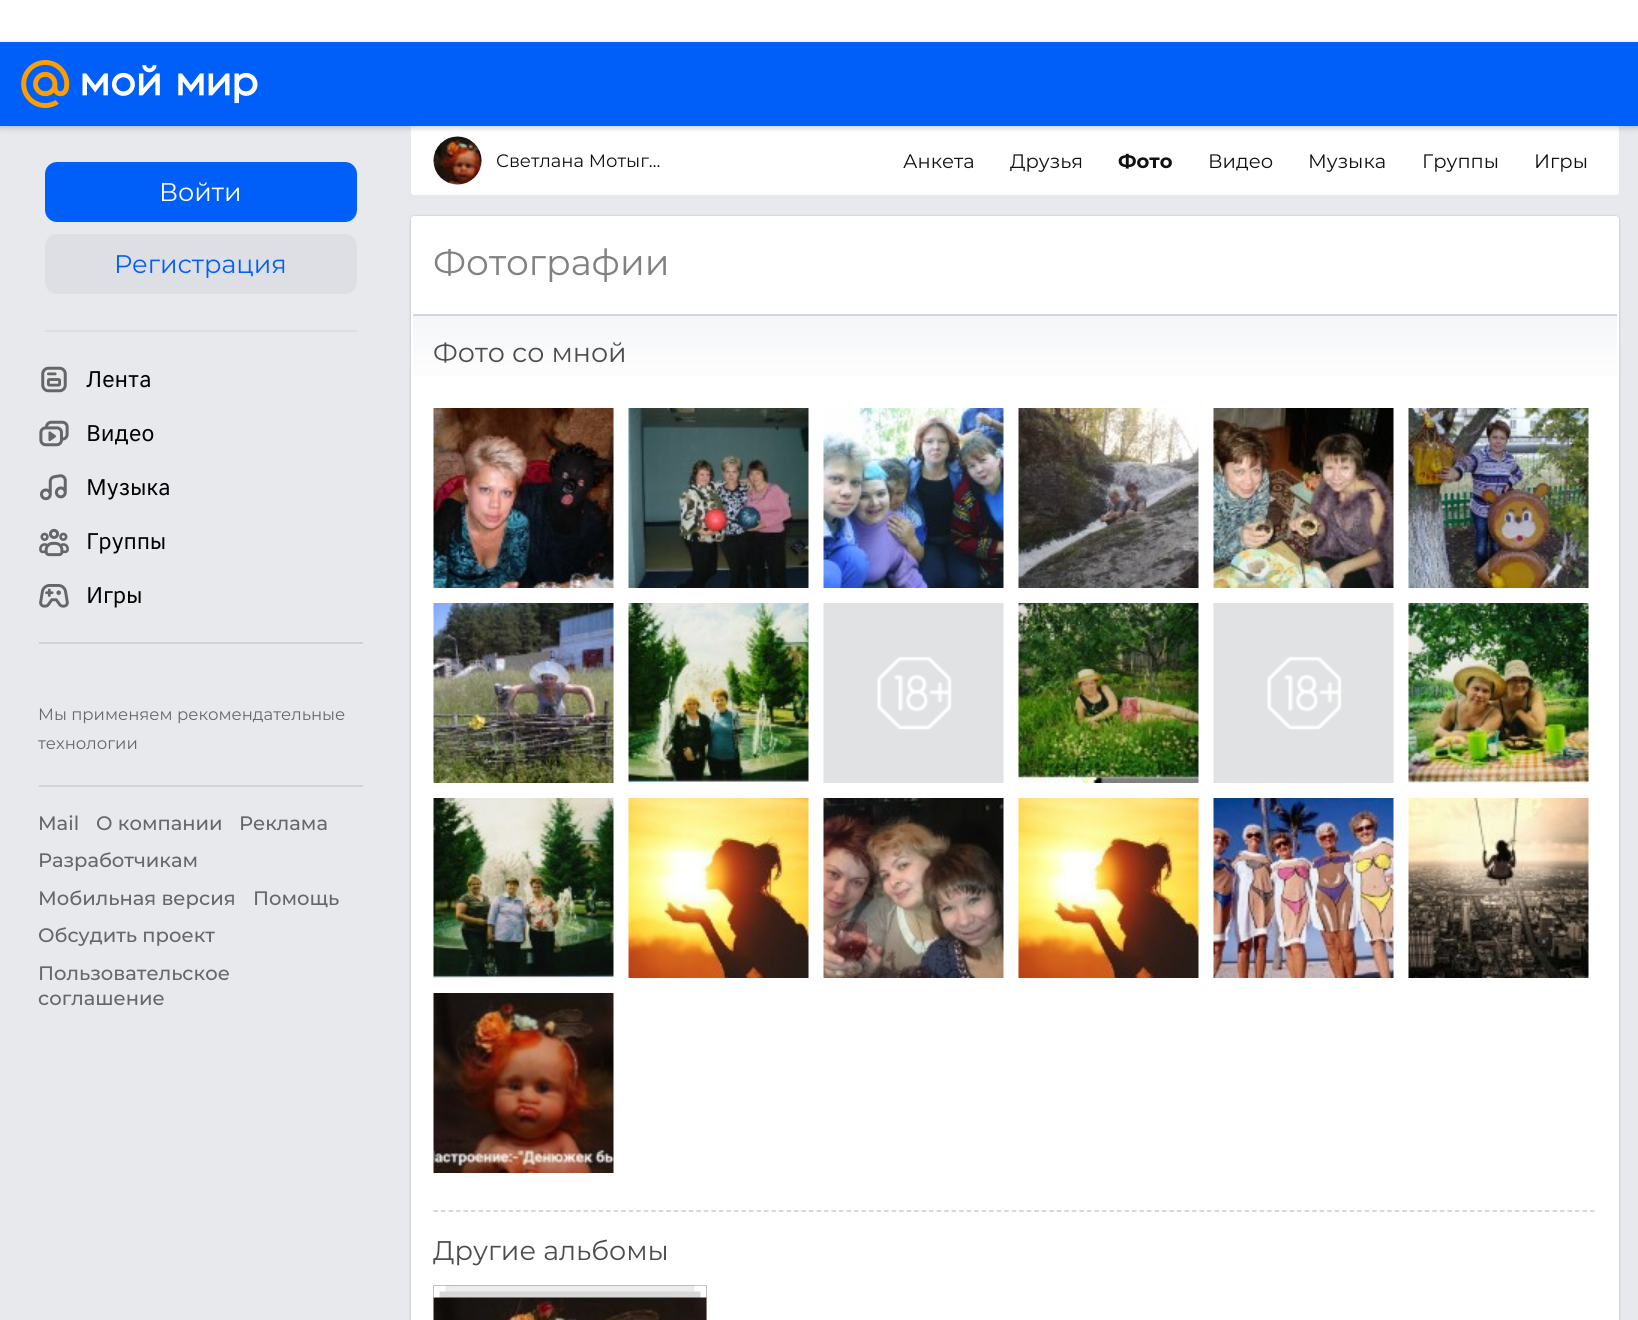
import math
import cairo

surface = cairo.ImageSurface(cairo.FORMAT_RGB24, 1638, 1320)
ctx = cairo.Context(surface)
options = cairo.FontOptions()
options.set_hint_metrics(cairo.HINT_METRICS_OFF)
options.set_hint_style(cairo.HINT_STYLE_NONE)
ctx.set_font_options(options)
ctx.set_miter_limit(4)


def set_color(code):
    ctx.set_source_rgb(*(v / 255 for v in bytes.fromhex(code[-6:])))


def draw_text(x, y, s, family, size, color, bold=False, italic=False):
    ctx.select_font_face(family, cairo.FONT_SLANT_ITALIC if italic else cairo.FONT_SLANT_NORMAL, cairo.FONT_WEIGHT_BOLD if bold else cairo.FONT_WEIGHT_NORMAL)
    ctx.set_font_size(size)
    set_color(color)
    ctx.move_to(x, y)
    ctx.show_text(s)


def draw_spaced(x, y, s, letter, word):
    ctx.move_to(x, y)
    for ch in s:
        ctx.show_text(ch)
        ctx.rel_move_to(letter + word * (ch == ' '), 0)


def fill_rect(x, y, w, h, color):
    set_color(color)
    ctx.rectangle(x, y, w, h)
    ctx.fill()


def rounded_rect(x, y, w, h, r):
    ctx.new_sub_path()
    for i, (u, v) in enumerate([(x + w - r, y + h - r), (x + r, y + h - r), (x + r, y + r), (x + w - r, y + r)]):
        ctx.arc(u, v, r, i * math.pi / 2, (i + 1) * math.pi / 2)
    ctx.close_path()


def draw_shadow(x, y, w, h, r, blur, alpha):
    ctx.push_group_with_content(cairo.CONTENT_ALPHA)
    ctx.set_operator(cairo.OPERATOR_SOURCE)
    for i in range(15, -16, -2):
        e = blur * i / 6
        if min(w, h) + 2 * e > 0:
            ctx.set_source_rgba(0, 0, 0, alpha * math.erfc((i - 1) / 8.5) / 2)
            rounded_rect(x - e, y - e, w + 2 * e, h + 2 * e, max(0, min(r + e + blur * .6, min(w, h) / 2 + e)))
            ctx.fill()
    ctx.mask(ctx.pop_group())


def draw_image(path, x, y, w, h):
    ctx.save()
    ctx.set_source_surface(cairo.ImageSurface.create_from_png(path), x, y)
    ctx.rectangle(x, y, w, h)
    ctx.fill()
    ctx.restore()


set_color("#e8e9ed")
ctx.paint()
fill_rect(0, 0, 1638, 42, "#ffffff")
ctx.new_path()
ctx.move_to(411, 126)
ctx.line_to(1619, 126)
ctx.line_to(1619, 192)
ctx.curve_to(1619, 193.5, 1617.5, 195, 1616, 195)
ctx.line_to(414, 195)
ctx.curve_to(412.5, 195, 411, 193.5, 411, 192)
ctx.close_path()
ctx.fill()
set_color("#f0f0f0")
ctx.arc(458, 161, 24, 0, 2 * math.pi)
ctx.fill()
draw_image("assets/img7.png", 433, 136, 49, 49)
set_color("#000000")
draw_shadow(0, 44, 1638, 84, 0, 3, 0.2)
fill_rect(0, 42, 1638, 84, "#015ff9")
draw_image("assets/img1.png", 21, 60, 237, 48)
rounded_rect(45, 162, 312, 60, 12)
ctx.fill()
draw_text(159, 201, "Войти", "Montserrat", 25.5, "#ffffff")
set_color("#dddfe4")
rounded_rect(45, 234, 312, 60, 12)
ctx.fill()
draw_text(114, 273, "Регистрация", "Montserrat", 25.5, "#015ff9")
fill_rect(45, 330, 312, 2, "#dddee3")
draw_image("assets/img2.png", 41, 366, 26, 27)
ctx.select_font_face("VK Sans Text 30")
ctx.set_font_size(22.5)
set_color("#000000")
draw_spaced(86, 387, "Лента", -0.25, 0)
draw_image("assets/img3.png", 39, 420, 30, 27)
draw_spaced(86, 441, "Видео", -0.25, 0)
draw_image("assets/img4.png", 40, 474, 27, 27)
draw_spaced(86, 495, "Музыка", -0.25, 0)
draw_image("assets/img5.png", 39, 528, 30, 29)
draw_spaced(86, 549, "Группы", -0.25, 0)
draw_image("assets/img6.png", 39, 584, 30, 24)
draw_spaced(86, 603, "Игры", -0.25, 0)
fill_rect(39, 642, 324, 2, "#d2d3da")
draw_text(38, 720, "Мы применяем рекомендательные", "Montserrat", 16.5, "#666768")
draw_text(38, 749, "технологии", "Montserrat", 16.5, "#666768")
fill_rect(39, 785, 324, 2, "#d2d3da")
draw_text(38, 830, "Mail", "Montserrat Medium", 19.5, "#666768")
draw_text(96, 830, "О компании", "Montserrat Medium", 19.5, "#666768")
draw_text(239, 830, "Реклама", "Montserrat Medium", 19.5, "#666768")
draw_text(38, 867, "Разработчикам", "Montserrat Medium", 19.5, "#666768")
draw_text(38, 905, "Мобильная версия", "Montserrat Medium", 19.5, "#666768")
draw_text(253, 905, "Помощь", "Montserrat Medium", 19.5, "#666768")
draw_text(38, 942, "Обсудить проект", "Montserrat Medium", 19.5, "#666768")
draw_text(38, 980, "Пользовательское", "Montserrat Medium", 19.5, "#666768")
draw_text(38, 1005, "соглашение", "Montserrat Medium", 19.5, "#666768")
set_color("#000000")
draw_shadow(411, 218, 1208, 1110, 3, 1.5, 0.12)
draw_shadow(411, 216, 1208, 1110, 3, 1, 0.15)
set_color("#ffffff")
rounded_rect(411, 216, 1208, 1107, 3)
ctx.fill()
draw_text(496, 167, "Светлана Мотыг…", "Montserrat", 18, "#111111")
draw_text(903, 168, "Анкета", "Montserrat", 19.5, "#111111")
draw_text(1010, 168, "Друзья", "Montserrat", 19.5, "#111111")
draw_text(1118, 168, "Фото", "Montserrat", 19.5, "#111111", bold=True)
draw_text(1208, 168, "Видео", "Montserrat", 19.5, "#111111")
draw_text(1308, 168, "Музыка", "Montserrat", 19.5, "#111111")
draw_text(1422, 168, "Группы", "Montserrat", 19.5, "#111111")
draw_text(1534, 168, "Игры", "Montserrat", 19.5, "#111111")
draw_text(433, 275, "Фотографии", "Montserrat", 36, "#818181")
gradient = cairo.LinearGradient(1015, 315, 1015, 398)
gradient.add_color_stop_rgba(0, 0.961, 0.965, 0.973, 1)
gradient.add_color_stop_rgba(1, 1, 1, 1, 1)
ctx.set_source(gradient)
ctx.rectangle(413, 316, 1204, 61)
ctx.fill()
fill_rect(413, 314, 1204, 2, "#d2d5d9")
draw_text(433, 362, "Фото со мной", "Montserrat", 27, "#4d4d4d")
draw_image("assets/img8.png", 433, 408, 181, 180)
draw_image("assets/img9.png", 628, 408, 181, 180)
draw_image("assets/img10.png", 823, 408, 181, 180)
draw_image("assets/img11.png", 1018, 408, 181, 180)
draw_image("assets/img12.png", 1213, 408, 181, 180)
draw_image("assets/img13.png", 1408, 408, 181, 180)
draw_image("assets/img14.png", 433, 603, 181, 180)
draw_image("assets/img15.png", 628, 603, 181, 180)
draw_image("assets/img16.png", 823, 603, 181, 180)
draw_image("assets/img17.png", 1018, 603, 181, 180)
draw_image("assets/img16.png", 1213, 603, 181, 180)
draw_image("assets/img18.png", 1408, 603, 181, 180)
draw_image("assets/img19.png", 433, 798, 181, 180)
draw_image("assets/img20.png", 628, 798, 181, 180)
draw_image("assets/img21.png", 823, 798, 181, 180)
draw_image("assets/img22.png", 1018, 798, 181, 180)
draw_image("assets/img23.png", 1213, 798, 181, 180)
draw_image("assets/img24.png", 1408, 798, 181, 180)
draw_image("assets/img25.png", 433, 993, 181, 180)
ctx.new_path()
ctx.move_to(433.5, 1211)
ctx.line_to(1596, 1211)
set_color("#cccccc")
ctx.set_line_width(1.5)
ctx.set_dash([4.5, 3.01])
ctx.stroke()
draw_text(433, 1260, "Другие альбомы", "Montserrat", 27, "#4d4d4d")
fill_rect(706, 1286, 1, 34, "#e0e1e3")
draw_image("assets/img26.png", 433, 1285, 274, 35)
draw_image("assets/img27.png", 433, 1285, 274, 13)
surface.write_to_png("output.png")
